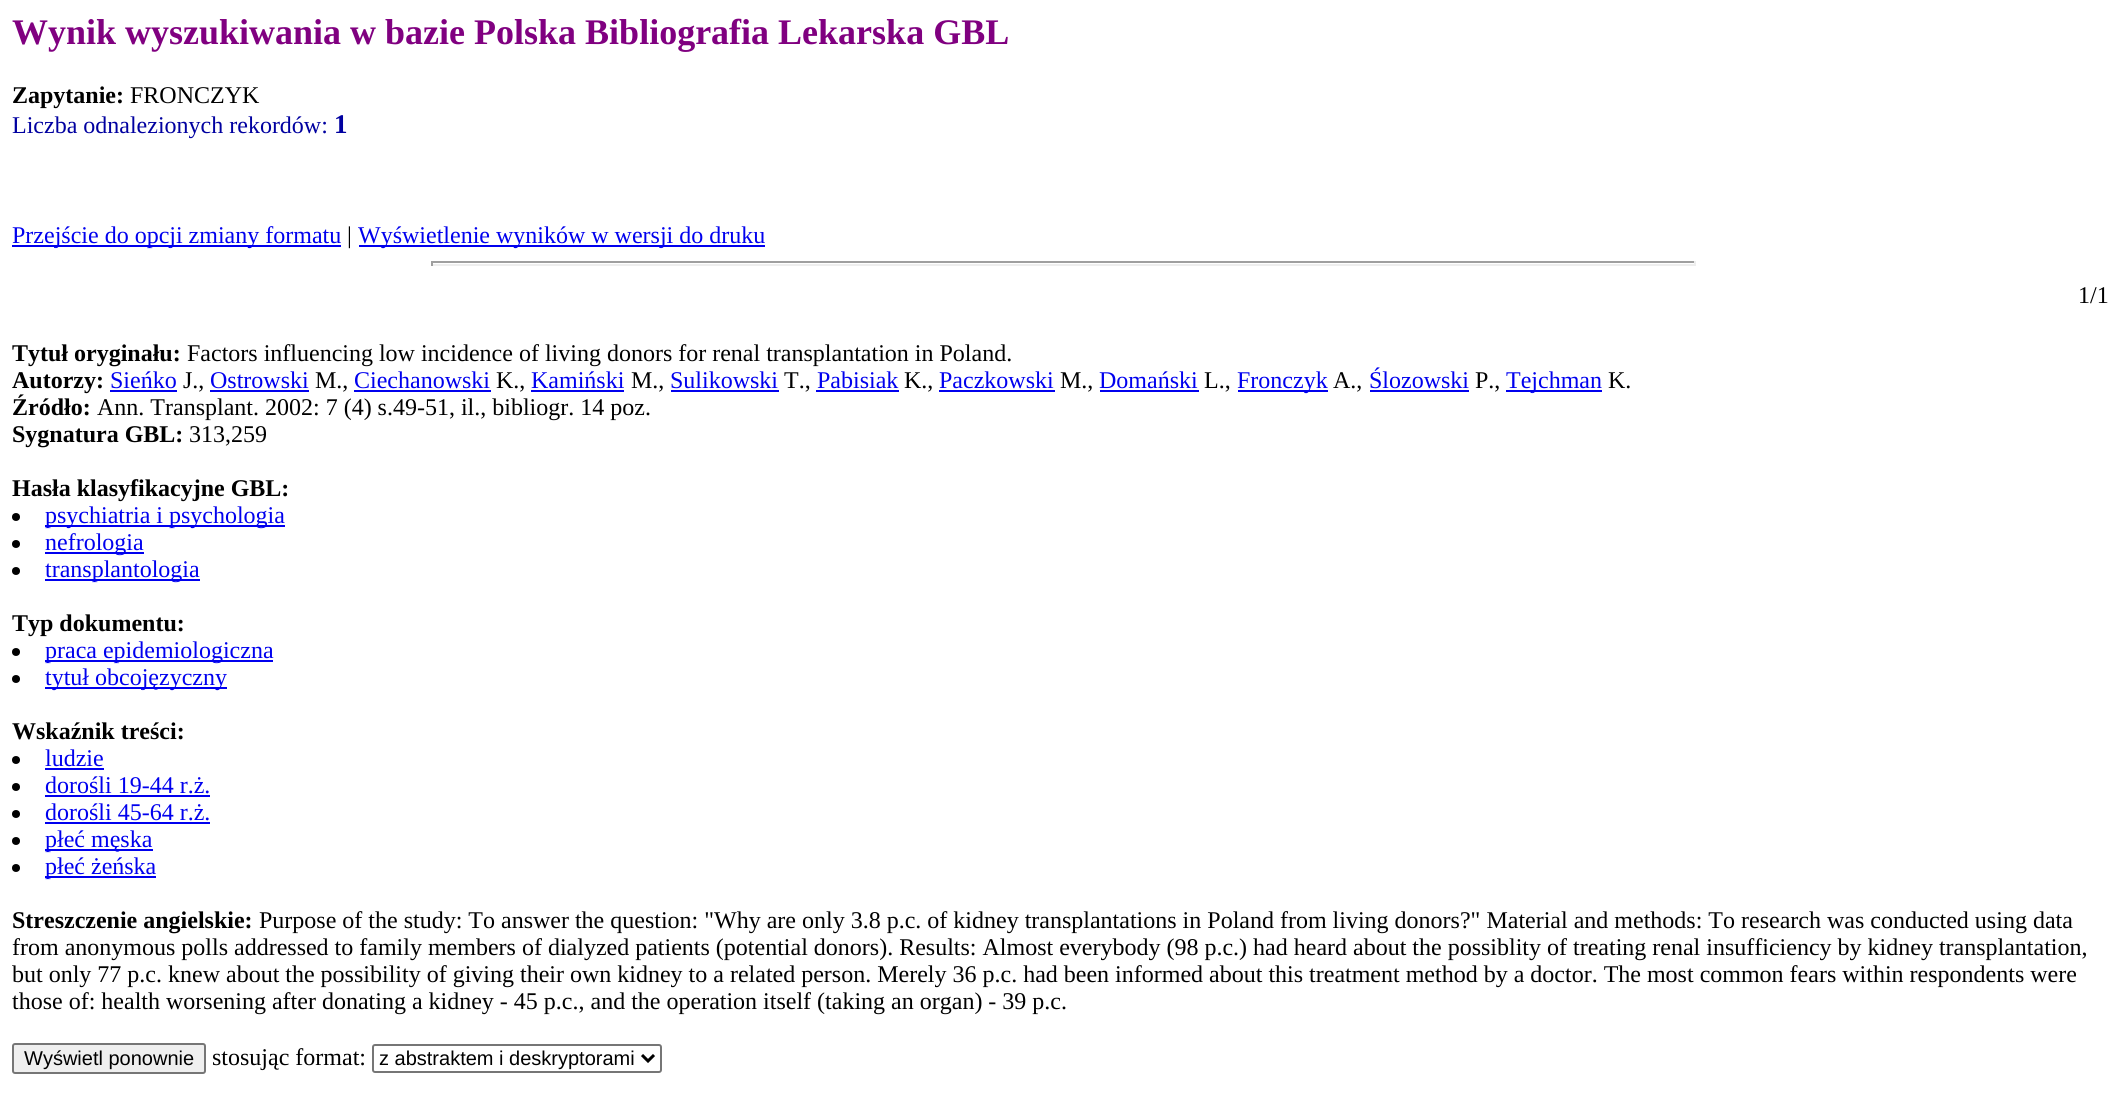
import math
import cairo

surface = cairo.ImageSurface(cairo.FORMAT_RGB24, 2125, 1098)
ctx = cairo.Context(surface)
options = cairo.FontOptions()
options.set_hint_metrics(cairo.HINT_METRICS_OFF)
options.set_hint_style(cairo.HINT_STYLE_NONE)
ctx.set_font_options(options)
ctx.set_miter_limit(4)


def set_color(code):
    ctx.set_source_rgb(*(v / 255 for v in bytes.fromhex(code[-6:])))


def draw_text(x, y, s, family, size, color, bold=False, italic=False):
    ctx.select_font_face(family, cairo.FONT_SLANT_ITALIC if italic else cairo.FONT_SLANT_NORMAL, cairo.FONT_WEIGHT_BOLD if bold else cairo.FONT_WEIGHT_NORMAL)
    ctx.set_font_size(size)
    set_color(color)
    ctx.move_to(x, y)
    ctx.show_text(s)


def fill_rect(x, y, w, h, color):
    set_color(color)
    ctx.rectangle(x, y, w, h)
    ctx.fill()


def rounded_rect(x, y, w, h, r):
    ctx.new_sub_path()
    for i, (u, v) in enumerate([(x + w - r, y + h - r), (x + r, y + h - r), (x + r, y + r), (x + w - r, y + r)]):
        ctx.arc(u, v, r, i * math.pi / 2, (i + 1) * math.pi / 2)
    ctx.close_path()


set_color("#ffffff")
ctx.paint()
draw_text(12, 44, "Wynik wyszukiwania w bazie Polska Bibliografia Lekarska GBL", "Liberation Serif", 36, "#800080", bold=True)
draw_text(12, 103, "Zapytanie:", "Liberation Serif", 24, "#000000", bold=True)
draw_text(130, 103, "FRONCZYK", "Liberation Serif", 24, "#000000")
draw_text(12, 133, "Liczba odnalezionych rekordów:", "Liberation Serif", 24, "#0000a0")
draw_text(334, 133, "1", "Liberation Serif", 27, "#0000a0", bold=True)
fill_rect(12, 245, 329, 2, "#0000ee")
draw_text(12, 243, "Przejście do opcji zmiany formatu", "Liberation Serif", 24, "#0000ee")
draw_text(347, 243, "|", "Liberation Serif", 24, "#000000")
fill_rect(359, 245, 406, 2, "#0000ee")
draw_text(358, 243, "Wyświetlenie wyników w wersji do druku", "Liberation Serif", 24, "#0000ee")
fill_rect(431, 261, 1264, 2, "#9f9f9f")
fill_rect(1694, 261, 2, 5, "#eeeeee")
fill_rect(431, 264, 1264, 2, "#eeeeee")
fill_rect(431, 261, 2, 5, "#9f9f9f")
draw_text(2078, 303, "1/1", "Liberation Serif", 24, "#000000")
draw_text(12, 361, "Tytuł oryginału:", "Liberation Serif", 24, "#000000", bold=True)
draw_text(187, 361, "Factors influencing low incidence of living donors for renal transplantation in Poland.", "Liberation Serif", 24, "#000000")
draw_text(12, 388, "Autorzy:", "Liberation Serif", 24, "#000000", bold=True)
draw_text(110, 388, "Sieńko", "Liberation Serif", 24, "#0000ee")
fill_rect(110, 390, 67, 2, "#0000ee")
draw_text(183, 388, "J.,", "Liberation Serif", 24, "#000000")
draw_text(210, 388, "Ostrowski", "Liberation Serif", 24, "#0000ee")
fill_rect(210, 390, 99, 2, "#0000ee")
draw_text(315, 388, "M.,", "Liberation Serif", 24, "#000000")
draw_text(354, 388, "Ciechanowski", "Liberation Serif", 24, "#0000ee")
fill_rect(354, 390, 137, 2, "#0000ee")
draw_text(496, 388, "K.,", "Liberation Serif", 24, "#000000")
draw_text(531, 388, "Kamiński", "Liberation Serif", 24, "#0000ee")
fill_rect(531, 390, 93, 2, "#0000ee")
draw_text(631, 388, "M.,", "Liberation Serif", 24, "#000000")
draw_text(670, 388, "Sulikowski", "Liberation Serif", 24, "#0000ee")
fill_rect(671, 390, 108, 2, "#0000ee")
draw_text(784, 388, "T.,", "Liberation Serif", 24, "#000000")
draw_text(817, 388, "Pabisiak", "Liberation Serif", 24, "#0000ee")
fill_rect(816, 390, 83, 2, "#0000ee")
draw_text(904, 388, "K.,", "Liberation Serif", 24, "#000000")
draw_text(939, 388, "Paczkowski", "Liberation Serif", 24, "#0000ee")
fill_rect(939, 390, 116, 2, "#0000ee")
draw_text(1060, 388, "M.,", "Liberation Serif", 24, "#000000")
draw_text(1099, 388, "Domański", "Liberation Serif", 24, "#0000ee")
fill_rect(1100, 390, 99, 2, "#0000ee")
draw_text(1204, 388, "L.,", "Liberation Serif", 24, "#000000")
fill_rect(1238, 390, 90, 2, "#0000ee")
draw_text(1237, 388, "Fronczyk", "Liberation Serif", 24, "#0000ee")
draw_text(1333, 388, "A.,", "Liberation Serif", 24, "#000000")
draw_text(1369, 388, "Ślozowski", "Liberation Serif", 24, "#0000ee")
fill_rect(1370, 390, 99, 2, "#0000ee")
draw_text(1475, 388, "P.,", "Liberation Serif", 24, "#000000")
fill_rect(1506, 390, 96, 2, "#0000ee")
draw_text(1506, 388, "Tejchman", "Liberation Serif", 24, "#0000ee")
draw_text(1608, 388, "K.", "Liberation Serif", 24, "#000000")
draw_text(12, 415, "Źródło:", "Liberation Serif", 24, "#000000", bold=True)
draw_text(97, 415, "Ann. Transplant. 2002: 7 (4) s.49-51, il., bibliogr. 14 poz.", "Liberation Serif", 24, "#000000")
draw_text(12, 442, "Sygnatura GBL:", "Liberation Serif", 24, "#000000", bold=True)
draw_text(189, 442, "313,259", "Liberation Serif", 24, "#000000")
draw_text(12, 496, "Hasła klasyfikacyjne GBL:", "Liberation Serif", 24, "#000000", bold=True)
ctx.new_path()
ctx.arc(16, 517, 4, 0, 2 * math.pi)
ctx.fill()
fill_rect(45, 525, 240, 2, "#0000ee")
draw_text(45, 523, "psychiatria i psychologia", "Liberation Serif", 24, "#0000ee")
set_color("#000000")
ctx.new_path()
ctx.arc(16, 544, 4, 0, 2 * math.pi)
ctx.fill()
fill_rect(45, 552, 99, 2, "#0000ee")
draw_text(45, 550, "nefrologia", "Liberation Serif", 24, "#0000ee")
set_color("#000000")
ctx.new_path()
ctx.arc(16, 571, 4, 0, 2 * math.pi)
ctx.fill()
fill_rect(45, 579, 155, 2, "#0000ee")
draw_text(45, 577, "transplantologia", "Liberation Serif", 24, "#0000ee")
draw_text(12, 631, "Typ dokumentu:", "Liberation Serif", 24, "#000000", bold=True)
ctx.new_path()
ctx.arc(16, 652, 4, 0, 2 * math.pi)
ctx.fill()
fill_rect(45, 660, 228, 2, "#0000ee")
draw_text(45, 658, "praca epidemiologiczna", "Liberation Serif", 24, "#0000ee")
set_color("#000000")
ctx.new_path()
ctx.arc(16, 679, 4, 0, 2 * math.pi)
ctx.fill()
fill_rect(45, 687, 182, 2, "#0000ee")
draw_text(45, 685, "tytuł obcojęzyczny", "Liberation Serif", 24, "#0000ee")
draw_text(12, 739, "Wskaźnik treści:", "Liberation Serif", 24, "#000000", bold=True)
ctx.new_path()
ctx.arc(16, 760, 4, 0, 2 * math.pi)
ctx.fill()
draw_text(45, 766, "ludzie", "Liberation Serif", 24, "#0000ee")
fill_rect(45, 768, 59, 2, "#0000ee")
set_color("#000000")
ctx.new_path()
ctx.arc(16, 787, 4, 0, 2 * math.pi)
ctx.fill()
draw_text(45, 793, "dorośli 19-44 r.ż.", "Liberation Serif", 24, "#0000ee")
fill_rect(45, 795, 165, 2, "#0000ee")
set_color("#000000")
ctx.new_path()
ctx.arc(16, 814, 4, 0, 2 * math.pi)
ctx.fill()
draw_text(45, 820, "dorośli 45-64 r.ż.", "Liberation Serif", 24, "#0000ee")
fill_rect(45, 822, 165, 2, "#0000ee")
set_color("#000000")
ctx.new_path()
ctx.arc(16, 841, 4, 0, 2 * math.pi)
ctx.fill()
fill_rect(45, 849, 108, 2, "#0000ee")
draw_text(45, 847, "płeć męska", "Liberation Serif", 24, "#0000ee")
set_color("#000000")
ctx.new_path()
ctx.arc(16, 868, 4, 0, 2 * math.pi)
ctx.fill()
fill_rect(45, 876, 111, 2, "#0000ee")
draw_text(45, 874, "płeć żeńska", "Liberation Serif", 24, "#0000ee")
draw_text(12, 928, "Streszczenie angielskie:", "Liberation Serif", 24, "#000000", bold=True)
draw_text(259, 928, "Purpose of the study: To answer the question: \"Why are only 3.8 p.c. of kidney transplantations in Poland from living donors?\" Material and methods: To research was conducted using data", "Liberation Serif", 24, "#000000")
draw_text(12, 955, "from anonymous polls addressed to family members of dialyzed patients (potential donors). Results: Almost everybody (98 p.c.) had heard about the possiblity of treating renal insufficiency by kidney transplantation,", "Liberation Serif", 24, "#000000")
draw_text(12, 982, "but only 77 p.c. knew about the possibility of giving their own kidney to a related person. Merely 36 p.c. had been informed about this treatment method by a doctor. The most common fears within respondents were", "Liberation Serif", 24, "#000000")
draw_text(12, 1009, "those of: health worsening after donating a kidney - 45 p.c., and the operation itself (taking an organ) - 39 p.c.", "Liberation Serif", 24, "#000000")
set_color("#efefef")
rounded_rect(13, 1044, 192, 29, 2)
ctx.fill_preserve()
set_color("#767676")
ctx.stroke()
draw_text(24, 1065, "Wyświetl ponownie", "Liberation Sans", 20, "#000000")
draw_text(212, 1065, "stosując format:", "Liberation Serif", 24, "#000000")
rounded_rect(373, 1045, 288, 27, 2)
set_color("#767676")
ctx.stroke()
ctx.new_path()
ctx.move_to(642, 1055)
ctx.line_to(648, 1061)
ctx.line_to(654, 1055)
set_color("#000000")
ctx.set_line_width(3)
ctx.stroke()
draw_text(379, 1065, "z abstraktem i deskryptorami", "Liberation Sans", 20, "#000000")
surface.write_to_png("output.png")
